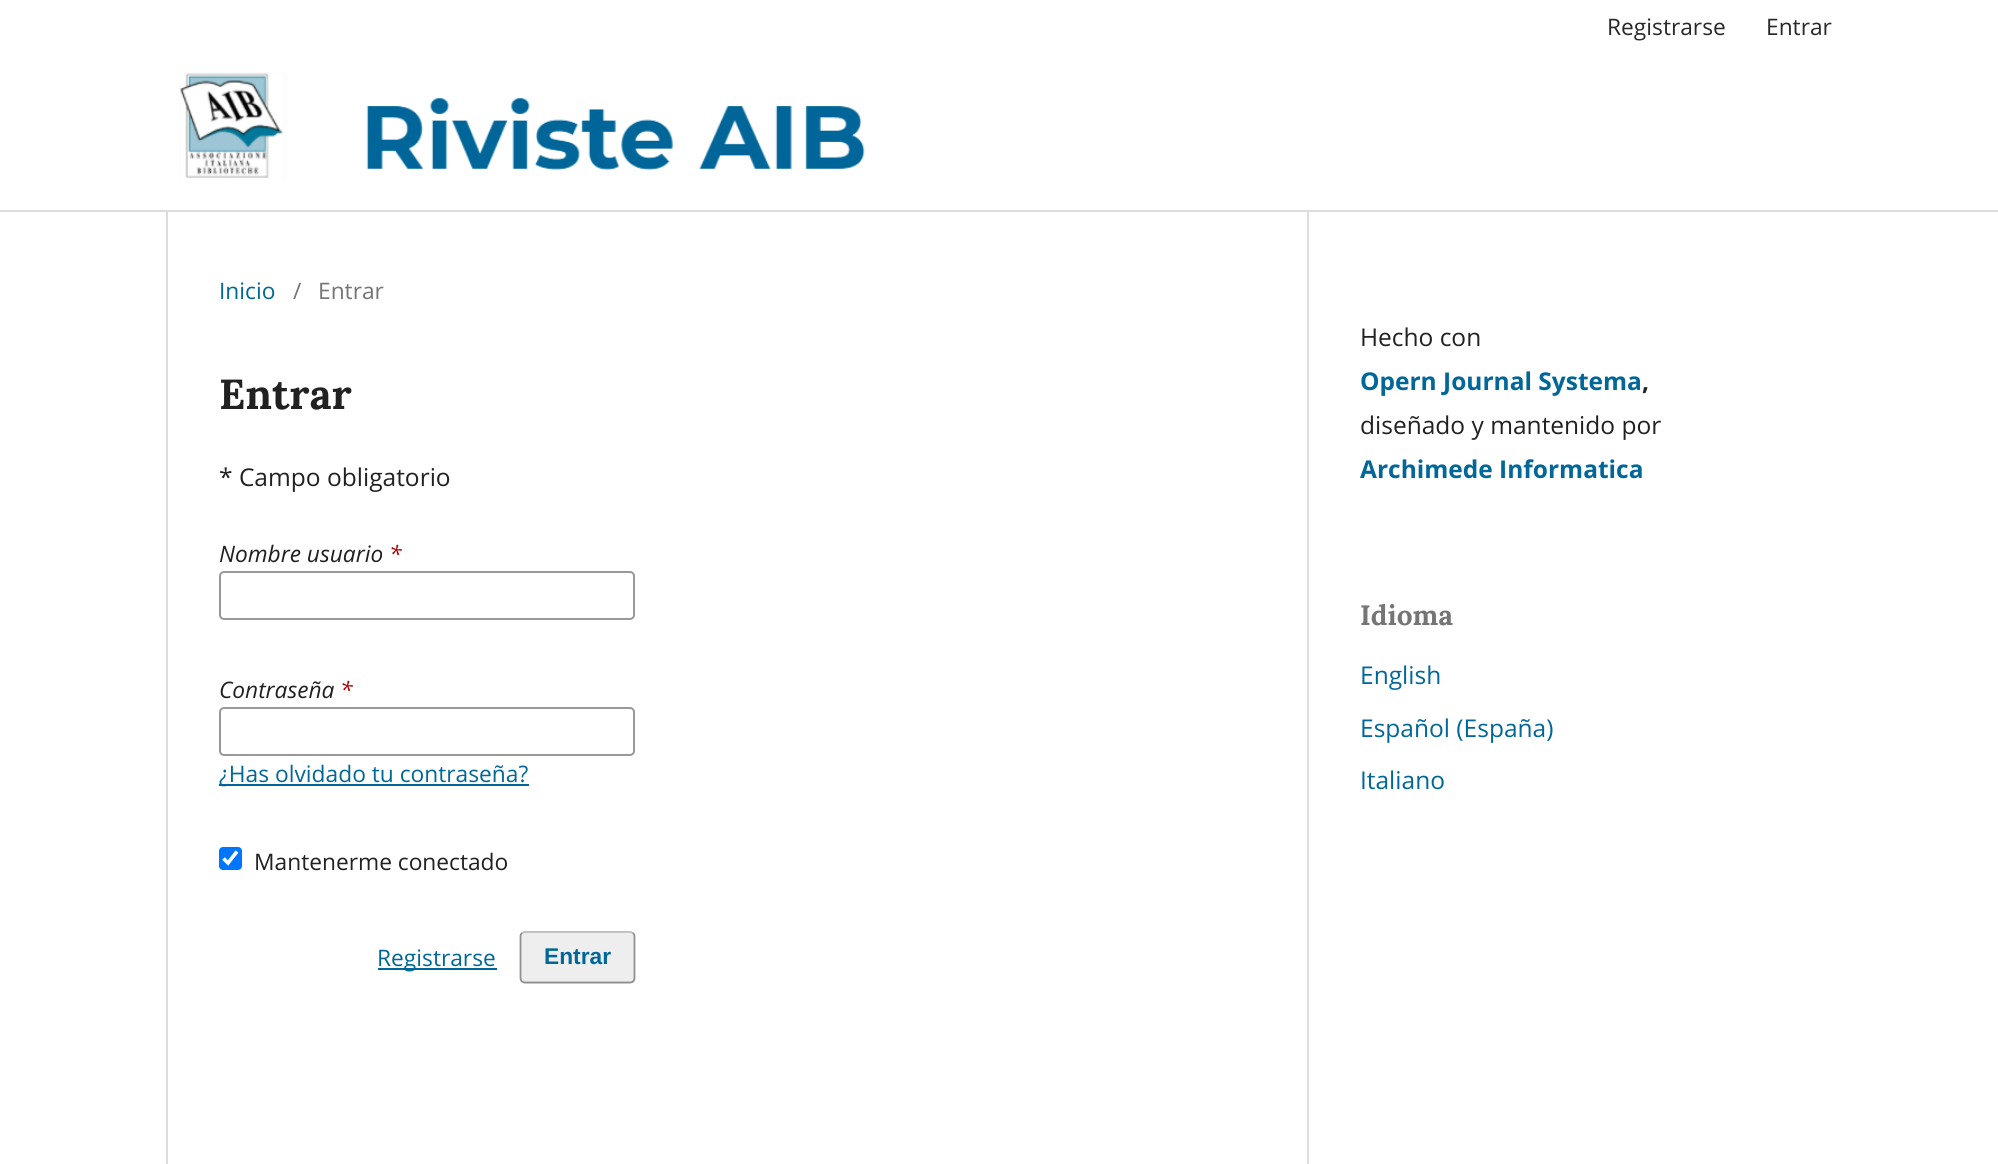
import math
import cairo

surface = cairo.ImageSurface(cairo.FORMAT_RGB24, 1998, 1164)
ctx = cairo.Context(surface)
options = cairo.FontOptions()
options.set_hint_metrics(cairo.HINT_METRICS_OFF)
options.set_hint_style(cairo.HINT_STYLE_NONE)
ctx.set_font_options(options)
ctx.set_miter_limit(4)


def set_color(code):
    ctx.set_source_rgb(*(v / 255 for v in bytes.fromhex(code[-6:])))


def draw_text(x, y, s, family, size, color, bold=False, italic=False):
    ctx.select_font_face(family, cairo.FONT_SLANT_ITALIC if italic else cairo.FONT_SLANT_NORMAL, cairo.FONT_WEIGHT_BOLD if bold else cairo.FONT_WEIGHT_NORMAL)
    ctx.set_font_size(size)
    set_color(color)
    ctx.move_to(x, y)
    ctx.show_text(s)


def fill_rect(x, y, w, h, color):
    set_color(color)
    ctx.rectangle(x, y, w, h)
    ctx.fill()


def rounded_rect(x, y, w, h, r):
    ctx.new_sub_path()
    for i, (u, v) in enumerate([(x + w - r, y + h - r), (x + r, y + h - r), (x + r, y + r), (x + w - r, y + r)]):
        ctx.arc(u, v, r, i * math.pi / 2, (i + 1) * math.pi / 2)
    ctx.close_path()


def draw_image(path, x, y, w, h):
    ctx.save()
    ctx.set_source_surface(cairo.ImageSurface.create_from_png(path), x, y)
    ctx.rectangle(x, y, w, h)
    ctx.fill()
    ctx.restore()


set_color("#ffffff")
ctx.paint()
fill_rect(0, 210, 1998, 2, "#dddddd")
draw_text(1607, 35, "Registrarse", "Open Sans", 22.75, "#292929")
draw_text(1766, 35, "Entrar", "Open Sans", 22.75, "#292929")
draw_image("assets/img1.png", 179, 72, 686, 107)
fill_rect(166, 212, 2, 952, "#dddddd")
draw_text(219, 299, "Inicio", "Open Sans", 22.75, "#006798")
draw_text(293, 299, "/", "Open Sans", 22.75, "#757575")
draw_text(318, 299, "Entrar", "Open Sans", 22.75, "#757575")
draw_text(219, 409, "Entrar", "Lora", 42, "#212121", bold=True)
draw_text(219, 486, "* Campo obligatorio", "Open Sans", 24.5, "#212121")
draw_text(219, 562, "Nombre usuario", "Open Sans", 22.75, "#212121", italic=True)
draw_text(389, 562, "*", "Open Sans", 22.75, "#a80000", italic=True)
rounded_rect(220, 572, 414, 47, 4)
set_color("#999999")
ctx.stroke()
draw_text(219, 698, "Contraseña", "Open Sans", 22.75, "#212121", italic=True)
draw_text(340, 698, "*", "Open Sans", 22.75, "#a80000", italic=True)
rounded_rect(220, 708, 414, 47, 4)
set_color("#999999")
ctx.stroke()
fill_rect(219, 784, 310, 2, "#006798")
draw_text(219, 782, "¿Has olvidado tu contraseña?", "Open Sans", 22.75, "#006798")
set_color("#0075ff")
rounded_rect(219, 847, 23, 23, 4)
ctx.fill()
ctx.new_path()
ctx.move_to(223.5, 858.5)
ctx.line_to(228, 863)
ctx.line_to(237, 851.5)
set_color("#ffffff")
ctx.set_line_width(3.6)
ctx.stroke()
draw_text(254, 870, "Mantenerme conectado", "Open Sans", 22.75, "#212121")
fill_rect(378, 968, 119, 2, "#006798")
draw_text(377, 966, "Registrarse", "Open Sans", 22.75, "#006798")
set_color("#eeeeee")
rounded_rect(520, 931, 115, 53, 5)
ctx.fill()
ctx.new_path()
ctx.move_to(522, 933)
ctx.line_to(524.5, 932)
ctx.line_to(630.5, 932)
ctx.line_to(633, 933)
set_color("#bbbbbb")
ctx.set_line_width(1.8)
ctx.stroke()
ctx.new_path()
ctx.move_to(633, 933)
ctx.curve_to(634, 934, 634.5, 935, 634.5, 936)
ctx.line_to(634.5, 978)
ctx.curve_to(634.5, 979.5, 634, 980.5, 633, 981.5)
ctx.curve_to(632.5, 982, 631, 982.5, 630, 982.5)
ctx.line_to(525, 982.5)
ctx.curve_to(524, 982.5, 522.5, 982, 522, 981.5)
ctx.curve_to(521, 980.5, 520.5, 979.5, 520.5, 978)
ctx.line_to(520.5, 936)
ctx.curve_to(520.5, 935, 521, 934, 522, 933)
ctx.set_source_rgba(0, 0, 0, 0.4)
ctx.stroke()
draw_text(544, 964, "Entrar", "Liberation Sans", 22.75, "#006798", bold=True)
fill_rect(1307, 212, 2, 952, "#dddddd")
draw_text(1360, 346, "Hecho con", "Open Sans", 24.5, "#212121")
draw_text(1360, 390, "Opern Journal Systema", "Open Sans", 24.5, "#006798", bold=True)
draw_text(1642, 390, ",", "Open Sans", 24.5, "#212121", bold=True)
draw_text(1360, 434, "diseñado y mantenido por", "Open Sans", 24.5, "#212121")
draw_text(1360, 478, "Archimede Informatica", "Open Sans", 24.5, "#006798", bold=True)
draw_text(1360, 625, "Idioma", "Lora", 28, "#757575", bold=True)
draw_text(1360, 684, "English", "Open Sans", 24.5, "#006798")
draw_text(1360, 737, "Español (España)", "Open Sans", 24.5, "#006798")
draw_text(1360, 789, "Italiano", "Open Sans", 24.5, "#006798")
surface.write_to_png("output.png")
